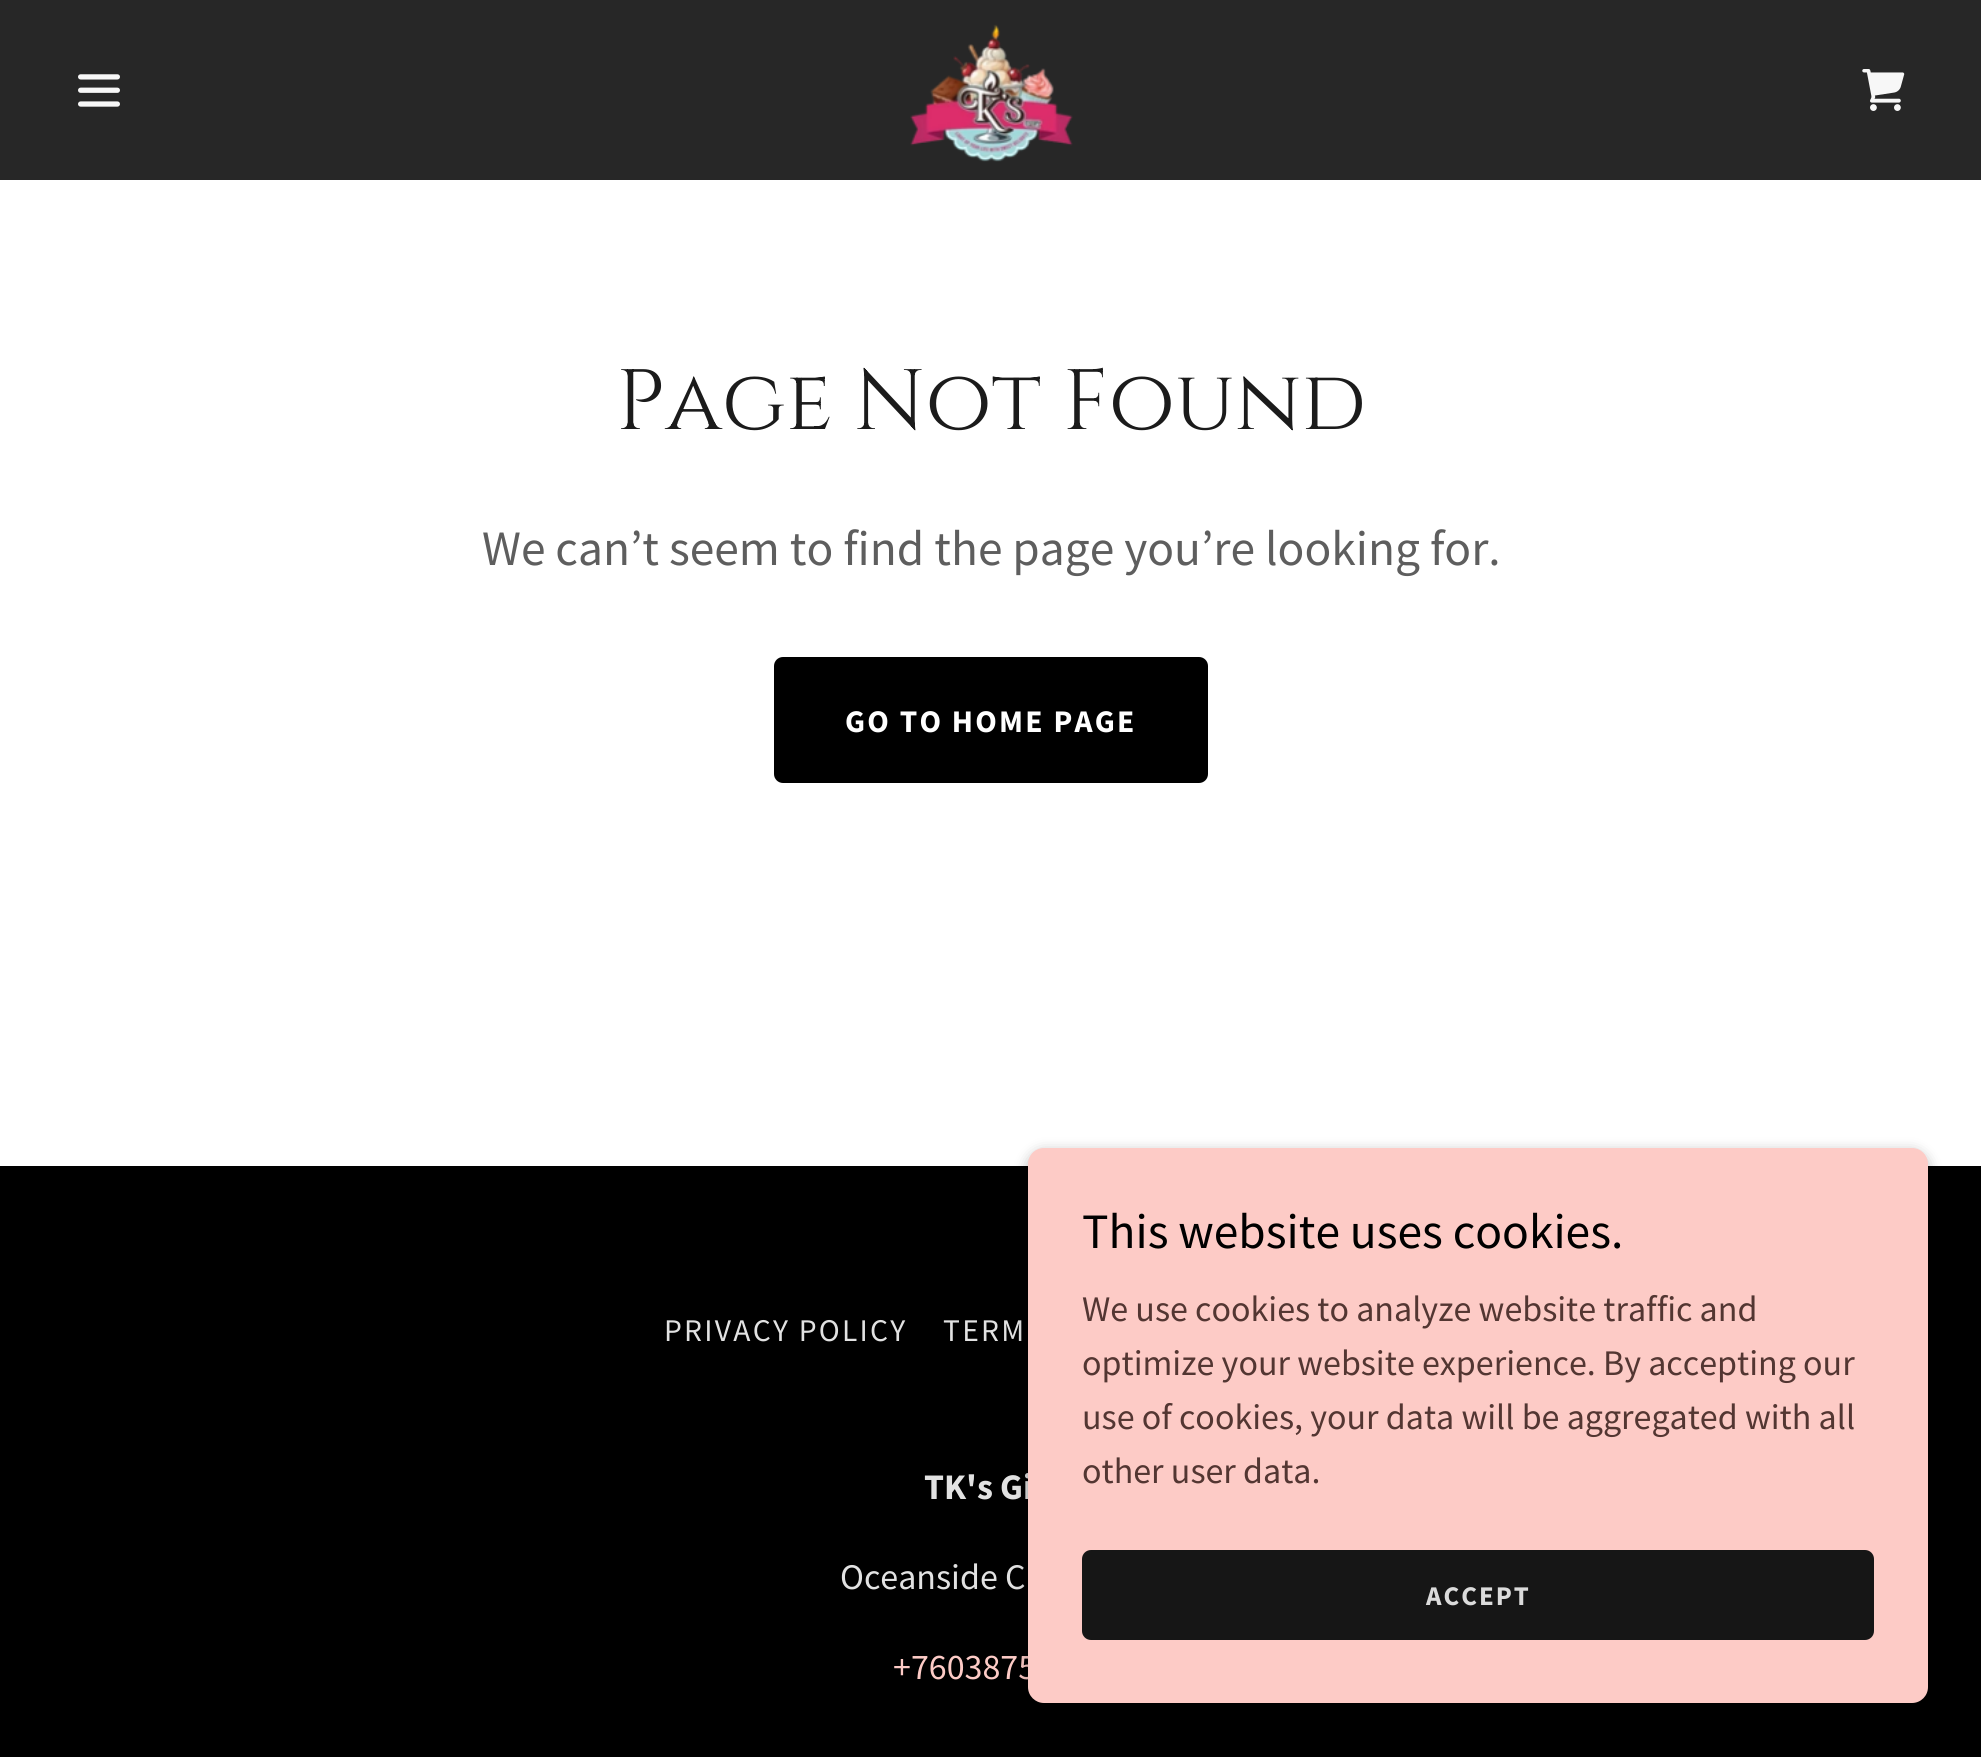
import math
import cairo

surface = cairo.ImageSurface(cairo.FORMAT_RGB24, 1981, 1757)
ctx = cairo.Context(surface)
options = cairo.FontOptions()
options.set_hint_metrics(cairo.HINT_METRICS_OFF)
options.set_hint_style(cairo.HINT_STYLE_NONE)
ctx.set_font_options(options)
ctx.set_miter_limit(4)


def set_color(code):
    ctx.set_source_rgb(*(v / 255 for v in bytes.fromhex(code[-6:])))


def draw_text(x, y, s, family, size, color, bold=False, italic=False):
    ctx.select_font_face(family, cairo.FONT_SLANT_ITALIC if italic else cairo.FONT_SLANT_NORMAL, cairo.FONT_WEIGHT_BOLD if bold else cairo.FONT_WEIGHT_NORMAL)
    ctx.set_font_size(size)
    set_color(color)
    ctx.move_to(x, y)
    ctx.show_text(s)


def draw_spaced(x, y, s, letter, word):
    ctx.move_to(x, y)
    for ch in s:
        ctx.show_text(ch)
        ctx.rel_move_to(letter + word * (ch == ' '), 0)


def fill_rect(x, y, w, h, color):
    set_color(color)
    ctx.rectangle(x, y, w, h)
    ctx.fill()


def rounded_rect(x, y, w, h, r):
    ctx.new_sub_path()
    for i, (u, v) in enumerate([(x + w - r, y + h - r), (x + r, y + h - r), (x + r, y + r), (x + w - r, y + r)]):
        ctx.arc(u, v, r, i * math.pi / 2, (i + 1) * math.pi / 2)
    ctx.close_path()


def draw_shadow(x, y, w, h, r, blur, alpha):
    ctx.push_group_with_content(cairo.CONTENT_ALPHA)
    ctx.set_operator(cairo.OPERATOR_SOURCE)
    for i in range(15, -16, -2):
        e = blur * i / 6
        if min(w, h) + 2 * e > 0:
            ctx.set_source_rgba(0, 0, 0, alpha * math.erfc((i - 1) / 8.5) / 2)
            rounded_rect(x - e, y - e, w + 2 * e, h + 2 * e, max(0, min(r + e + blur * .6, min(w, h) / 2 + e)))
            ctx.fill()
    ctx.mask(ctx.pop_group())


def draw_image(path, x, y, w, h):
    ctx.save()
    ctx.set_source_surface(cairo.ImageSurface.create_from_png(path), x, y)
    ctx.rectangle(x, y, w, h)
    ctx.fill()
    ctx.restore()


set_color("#000000")
ctx.paint()
fill_rect(0, 0, 1981, 180, "#272727")
draw_image("assets/img1.png", 78, 74, 42, 33)
draw_image("assets/img2.png", 910, 24, 163, 138)
draw_image("assets/img3.png", 1862, 69, 43, 42)
fill_rect(0, 180, 1981, 986, "#ffffff")
draw_text(616, 429, "Page Not Found", "Cinzel", 85.5, "#1b1b1b")
draw_text(482, 565, "We can’t seem to find the page you’re looking for.", "Source Sans Pro", 49.5, "#5e5e5e")
set_color("#000000")
rounded_rect(774, 657, 434, 126, 9)
ctx.fill()
ctx.select_font_face("Source Sans Pro", cairo.FONT_SLANT_NORMAL, cairo.FONT_WEIGHT_BOLD)
ctx.set_font_size(31.5)
set_color("#ffffff")
draw_spaced(845, 732, "GO TO HOME PAGE", 2.25, 0)
ctx.select_font_face("Source Sans Pro")
set_color("#e2e2e2")
draw_spaced(664, 1341, "PRIVACY POLICY", 2.25, 0)
draw_spaced(943, 1341, "TERM", 2.25, 0)
draw_text(924, 1499, "TK's Gi", "Source Sans Pro", 36, "#e2e2e2", bold=True)
draw_text(840, 1589, "Oceanside C", "Source Sans Pro", 36, "#e2e2e2")
draw_text(893, 1679, "+7603875", "Source Sans Pro", 36, "#fdcbc6")
set_color("#000000")
draw_shadow(1028, 1152, 900, 556, 16, 7, 0.3)
set_color("#fdcbc6")
rounded_rect(1028, 1148, 900, 555, 16)
ctx.fill()
draw_text(1082, 1248, "This website uses cookies.", "Source Sans Pro", 49.5, "#000000")
draw_text(1082, 1321, "We use cookies to analyze website traffic and", "Source Sans Pro", 36, "#533632")
draw_text(1082, 1375, "optimize your website experience. By accepting our", "Source Sans Pro", 36, "#533632")
draw_text(1082, 1429, "use of cookies, your data will be aggregated with all", "Source Sans Pro", 36, "#533632")
draw_text(1082, 1483, "other user data.", "Source Sans Pro", 36, "#533632")
set_color("#161616")
rounded_rect(1082, 1550, 792, 90, 9)
ctx.fill()
ctx.select_font_face("Source Sans Pro", cairo.FONT_SLANT_NORMAL, cairo.FONT_WEIGHT_BOLD)
ctx.set_font_size(27)
set_color("#dbdbdb")
draw_spaced(1426, 1605, "ACCEPT", 2, 0)
surface.write_to_png("output.png")
